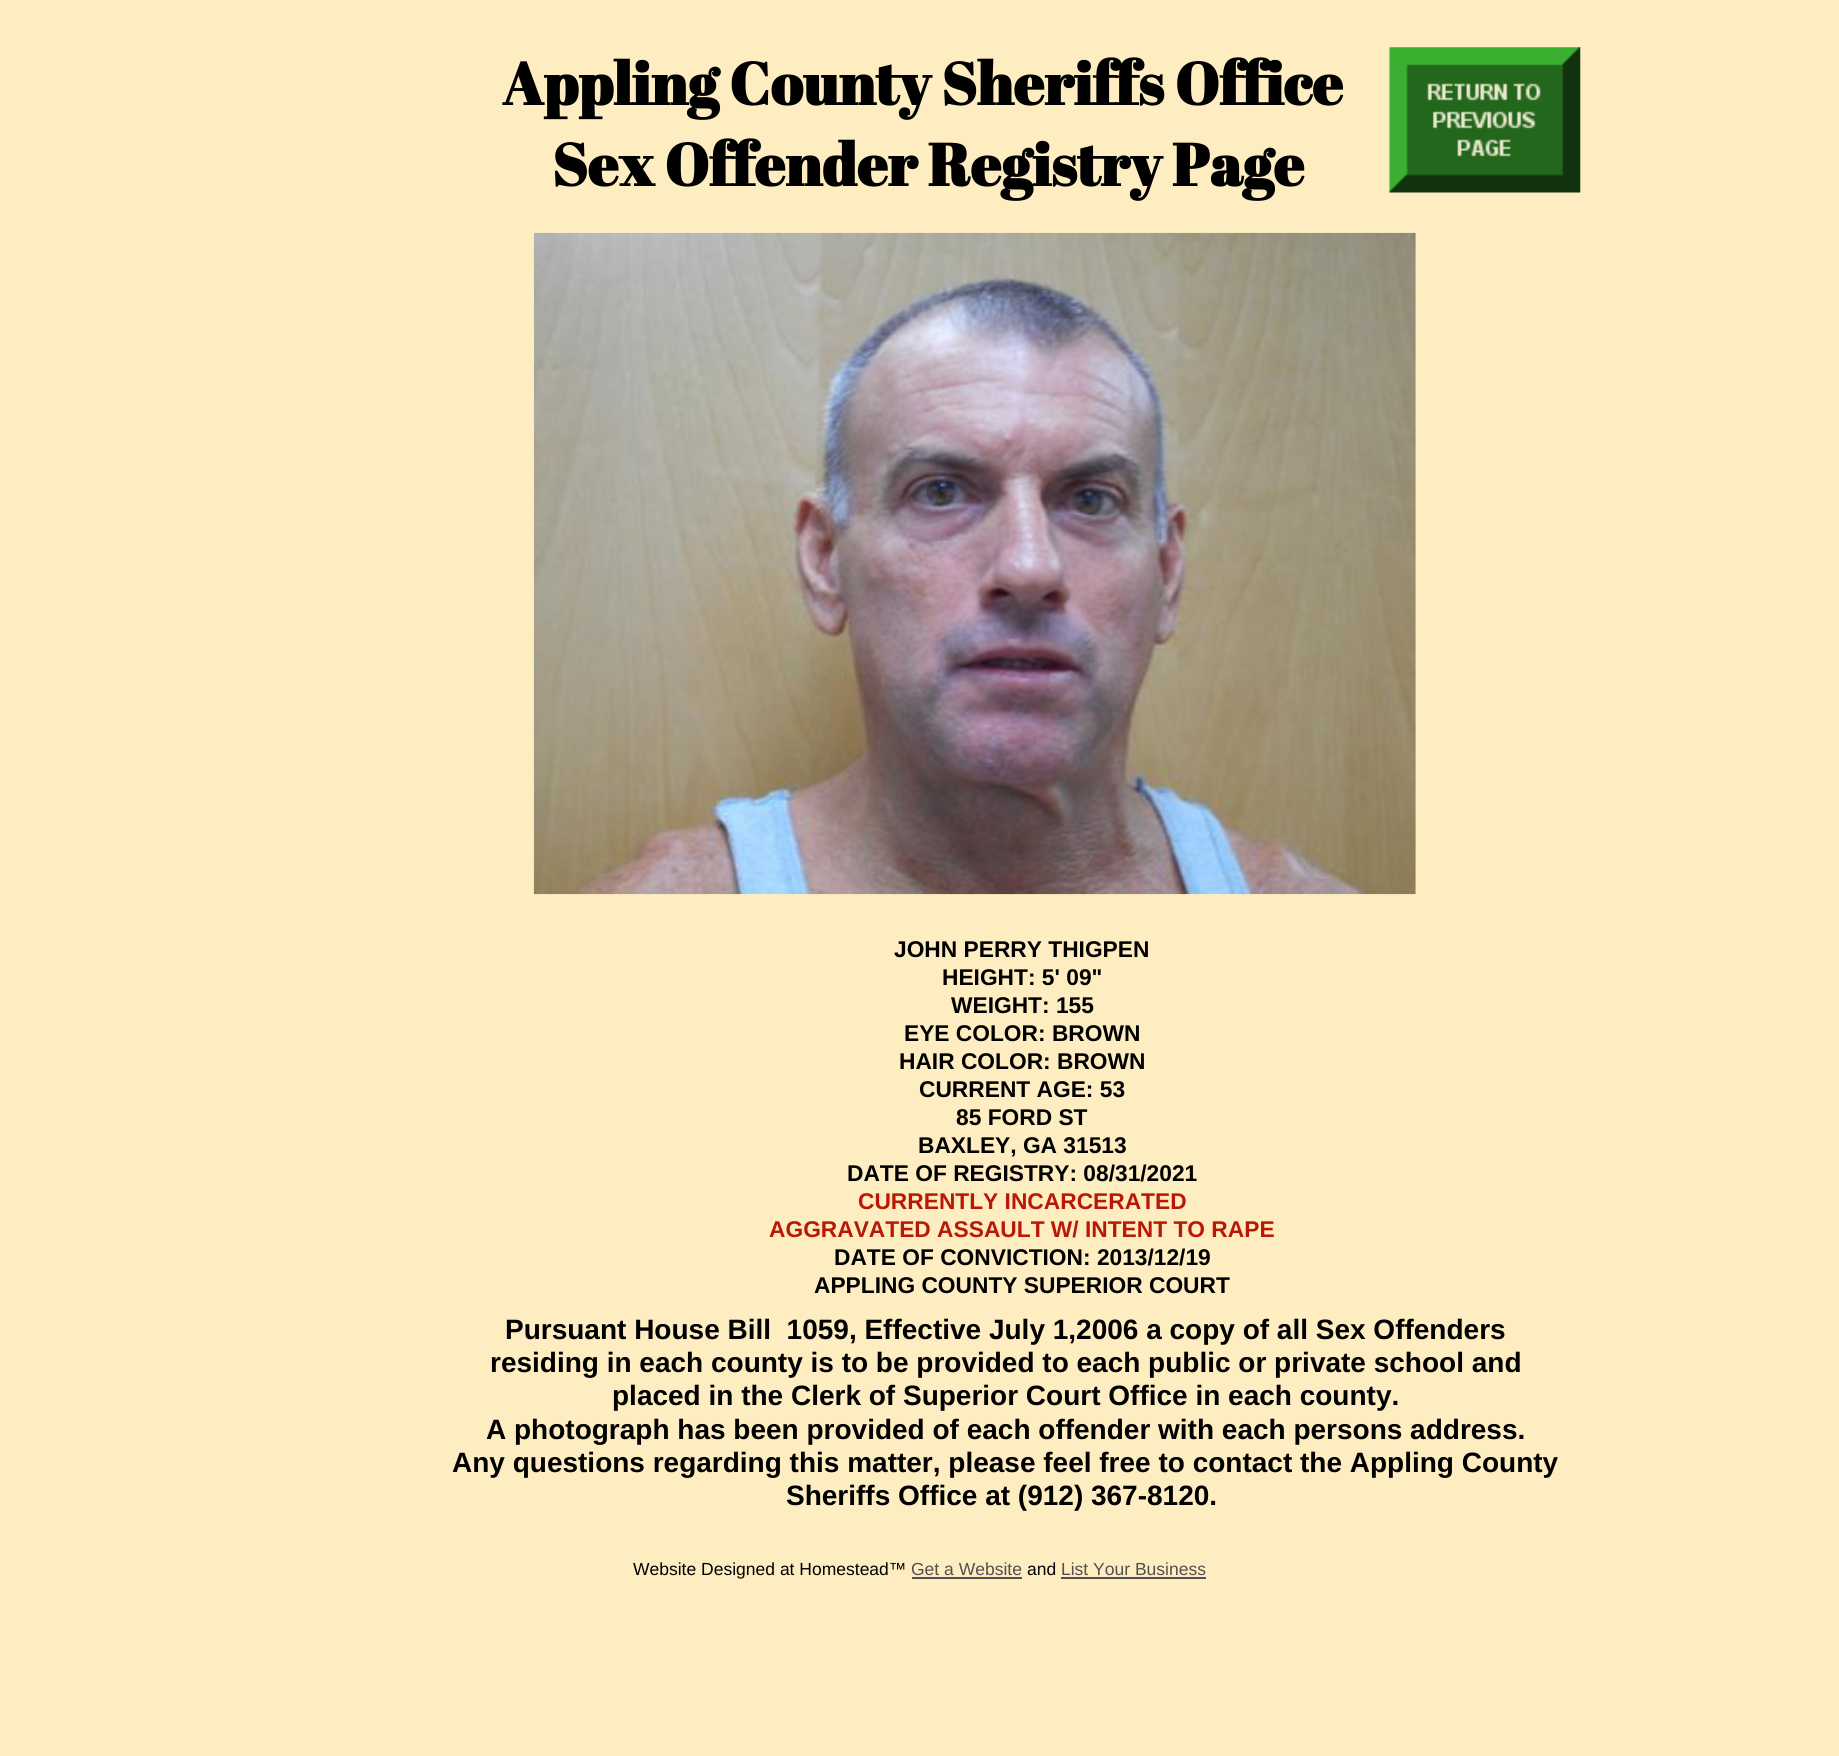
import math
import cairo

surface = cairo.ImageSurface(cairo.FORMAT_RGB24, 1839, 1756)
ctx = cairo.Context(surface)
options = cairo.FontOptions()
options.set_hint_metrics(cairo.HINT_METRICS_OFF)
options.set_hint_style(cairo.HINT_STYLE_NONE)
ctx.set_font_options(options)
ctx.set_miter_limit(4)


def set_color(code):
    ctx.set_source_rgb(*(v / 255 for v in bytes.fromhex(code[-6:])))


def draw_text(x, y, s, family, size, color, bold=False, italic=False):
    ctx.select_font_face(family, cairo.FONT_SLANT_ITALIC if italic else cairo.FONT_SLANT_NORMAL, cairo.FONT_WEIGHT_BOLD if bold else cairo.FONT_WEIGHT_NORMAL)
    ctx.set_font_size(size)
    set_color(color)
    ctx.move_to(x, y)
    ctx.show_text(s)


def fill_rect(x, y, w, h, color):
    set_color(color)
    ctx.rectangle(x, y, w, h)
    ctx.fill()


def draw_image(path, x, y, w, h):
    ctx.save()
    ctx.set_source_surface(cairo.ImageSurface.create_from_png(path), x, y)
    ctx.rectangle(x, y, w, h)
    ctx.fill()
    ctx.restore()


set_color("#fdedc0")
ctx.paint()
draw_text(502, 105, "Appling County Sheriffs Office", "Abril Fatface", 59.5, "#000000", bold=True)
draw_text(552, 186, "Sex Offender Registry Page", "Abril Fatface", 59.5, "#000000", bold=True)
draw_image("assets/img1.png", 1389, 47, 192, 146)
draw_image("assets/img2.png", 533, 232, 883, 663)
draw_text(894, 957, "JOHN PERRY THIGPEN", "Liberation Sans", 22.75, "#000000", bold=True)
draw_text(942, 985, "HEIGHT: 5' 09\"", "Liberation Sans", 22.75, "#000000", bold=True)
draw_text(951, 1013, "WEIGHT: 155", "Liberation Sans", 22.75, "#000000", bold=True)
draw_text(904, 1041, "EYE COLOR: BROWN", "Liberation Sans", 22.75, "#000000", bold=True)
draw_text(899, 1069, "HAIR COLOR: BROWN", "Liberation Sans", 22.75, "#000000", bold=True)
draw_text(919, 1097, "CURRENT AGE: 53", "Liberation Sans", 22.75, "#000000", bold=True)
draw_text(956, 1125, "85 FORD ST", "Liberation Sans", 22.75, "#000000", bold=True)
draw_text(918, 1153, "BAXLEY, GA 31513", "Liberation Sans", 22.75, "#000000", bold=True)
draw_text(847, 1181, "DATE OF REGISTRY: 08/31/2021", "Liberation Sans", 22.75, "#000000", bold=True)
draw_text(858, 1209, "CURRENTLY INCARCERATED", "Liberation Sans", 22.75, "#b91806", bold=True)
draw_text(769, 1237, "AGGRAVATED ASSAULT W/ INTENT TO RAPE", "Liberation Sans", 22.75, "#b91806", bold=True)
draw_text(834, 1265, "DATE OF CONVICTION: 2013/12/19", "Liberation Sans", 22.75, "#000000", bold=True)
draw_text(814, 1293, "APPLING COUNTY SUPERIOR COURT", "Liberation Sans", 22.75, "#000000", bold=True)
draw_text(505, 1339, "Pursuant House Bill  1059, Effective July 1,2006 a copy of all Sex Offenders", "Liberation Sans", 28, "#000000", bold=True)
draw_text(490, 1372, "residing in each county is to be provided to each public or private school and", "Liberation Sans", 28, "#000000", bold=True)
draw_text(612, 1405, "placed in the Clerk of Superior Court Office in each county.", "Liberation Sans", 28, "#000000", bold=True)
draw_text(486, 1439, "A photograph has been provided of each offender with each persons address.", "Liberation Sans", 28, "#000000", bold=True)
draw_text(452, 1472, "Any questions regarding this matter, please feel free to contact the Appling County", "Liberation Sans", 28, "#000000", bold=True)
draw_text(786, 1505, "Sheriffs Office at (912) 367-8120.", "Liberation Sans", 28, "#000000", bold=True)
draw_text(633, 1575, "Website Designed at Homestead™", "Liberation Sans", 17.5, "#000000")
draw_text(911, 1575, "Get a Website", "Liberation Sans", 17.5, "#505050")
fill_rect(912, 1577, 110, 2, "#505050")
draw_text(1027, 1575, "and", "Liberation Sans", 17.5, "#000000")
draw_text(1061, 1575, "List Your Business", "Liberation Sans", 17.5, "#505050")
fill_rect(1061, 1577, 145, 2, "#505050")
surface.write_to_png("output.png")
